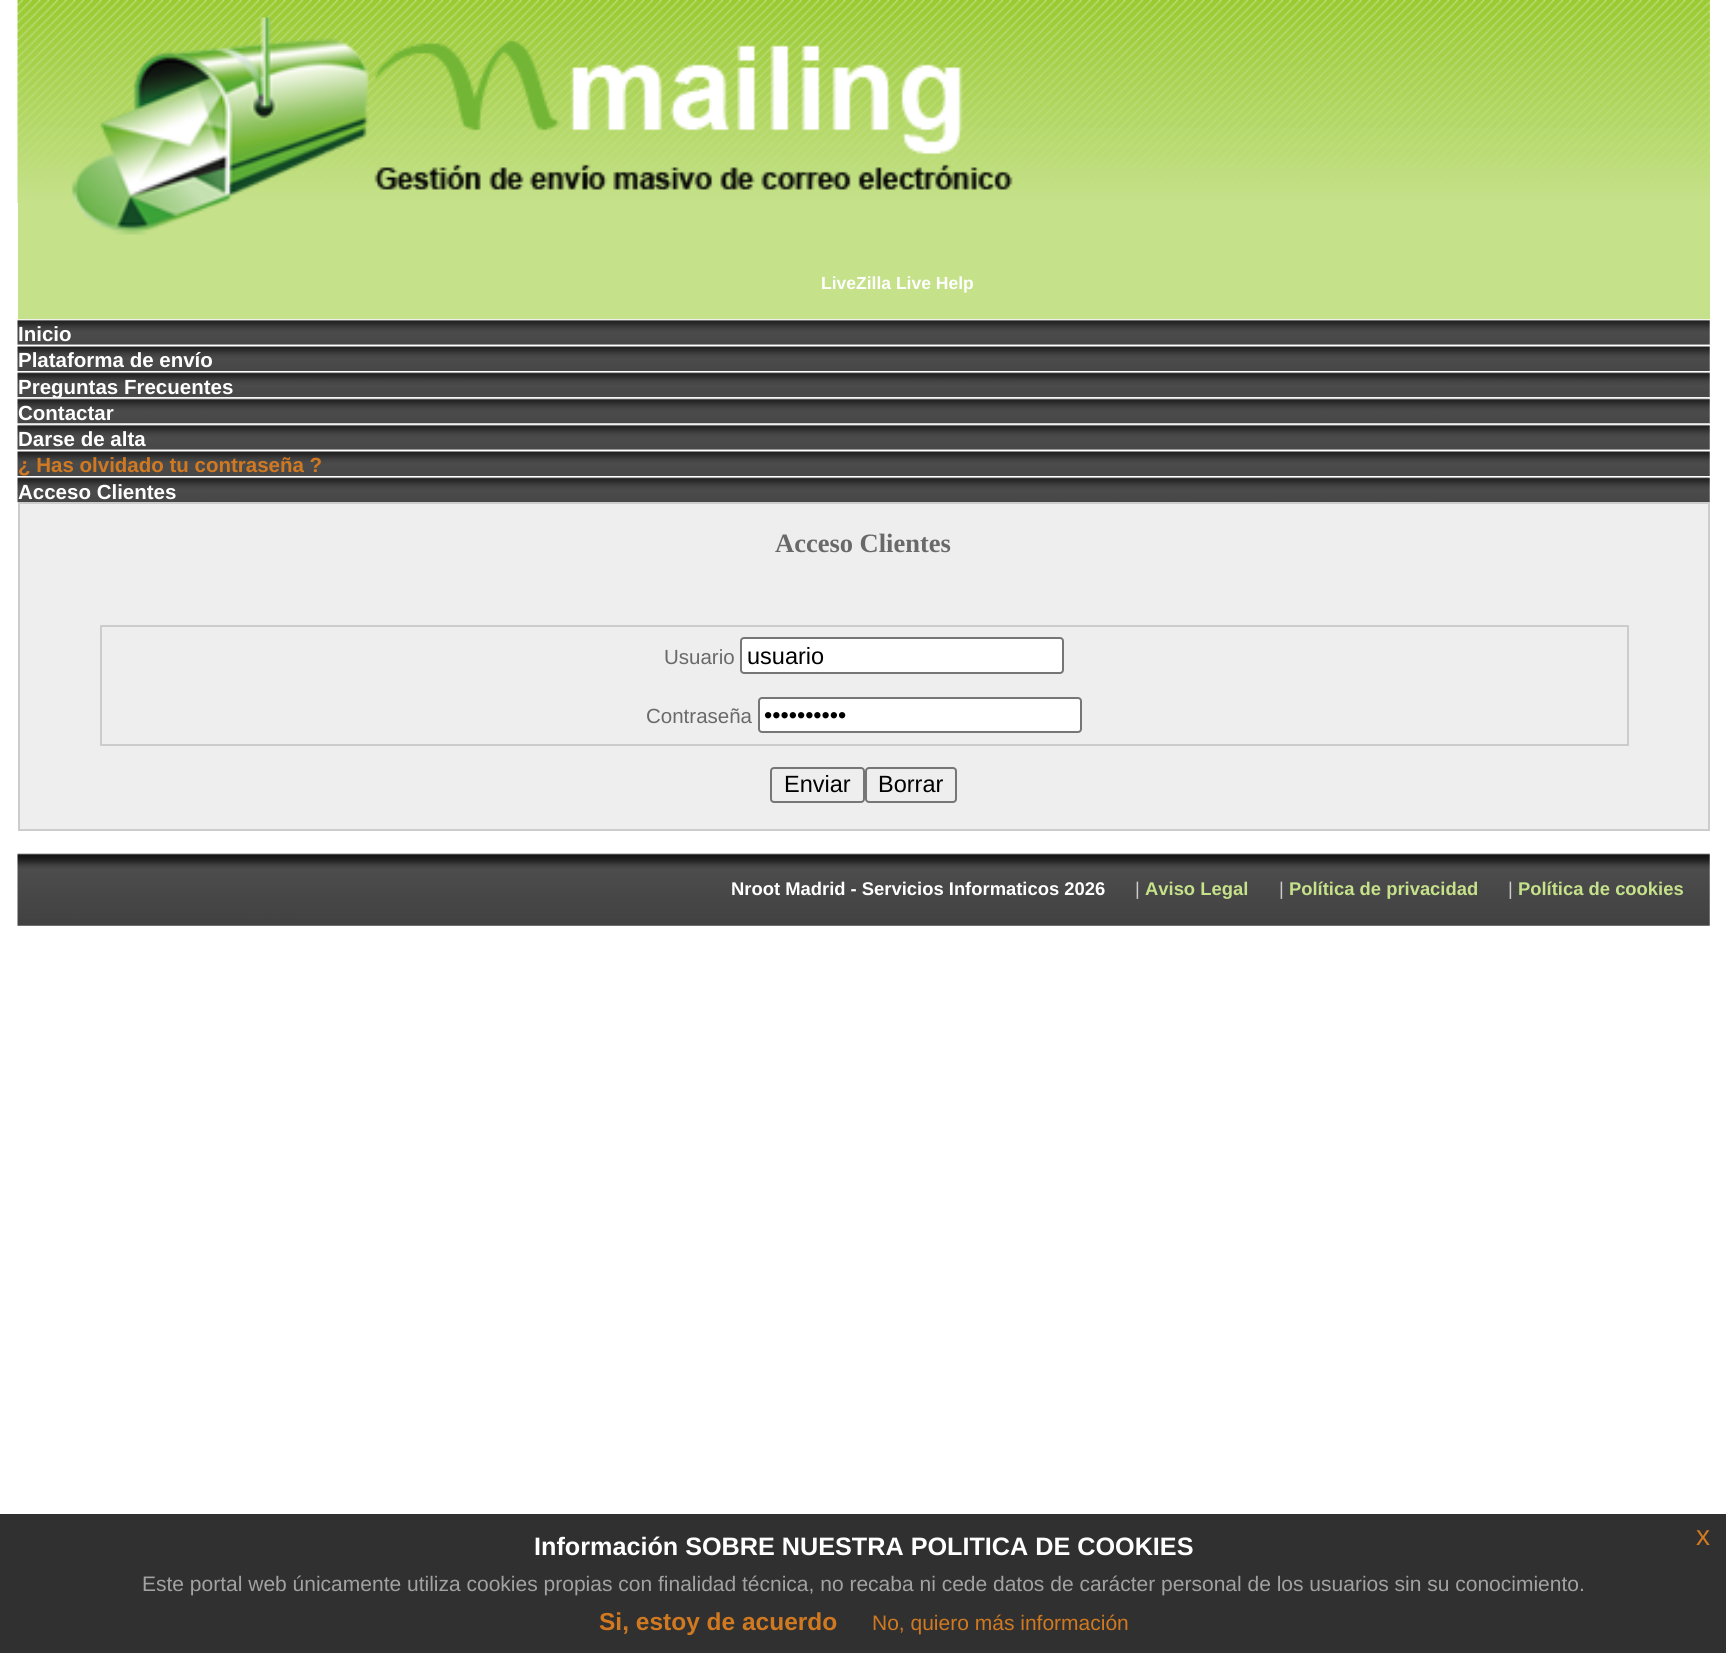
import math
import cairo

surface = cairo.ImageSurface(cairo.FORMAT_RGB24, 1726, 1653)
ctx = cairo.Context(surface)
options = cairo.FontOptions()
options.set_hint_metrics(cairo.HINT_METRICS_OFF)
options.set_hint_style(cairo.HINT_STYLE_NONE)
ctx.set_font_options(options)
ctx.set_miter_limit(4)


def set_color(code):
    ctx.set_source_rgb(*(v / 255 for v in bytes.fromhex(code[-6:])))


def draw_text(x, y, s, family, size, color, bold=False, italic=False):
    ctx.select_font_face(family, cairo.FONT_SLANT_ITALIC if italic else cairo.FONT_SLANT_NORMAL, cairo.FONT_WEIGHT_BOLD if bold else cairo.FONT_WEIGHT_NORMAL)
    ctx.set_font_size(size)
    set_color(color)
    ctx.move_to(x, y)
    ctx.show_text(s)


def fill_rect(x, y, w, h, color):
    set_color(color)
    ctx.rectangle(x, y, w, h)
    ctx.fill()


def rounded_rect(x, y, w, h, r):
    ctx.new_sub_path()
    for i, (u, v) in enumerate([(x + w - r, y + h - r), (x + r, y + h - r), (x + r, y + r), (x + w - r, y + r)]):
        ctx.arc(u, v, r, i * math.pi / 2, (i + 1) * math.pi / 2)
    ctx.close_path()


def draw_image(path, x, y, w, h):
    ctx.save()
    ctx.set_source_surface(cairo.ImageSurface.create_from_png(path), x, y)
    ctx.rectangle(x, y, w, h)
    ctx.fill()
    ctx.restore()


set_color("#ffffff")
ctx.paint()
fill_rect(18, 0, 1692, 319, "#c5e18a")
draw_image("assets/img1.png", 17, 0, 1693, 203)
draw_image("assets/img2.png", 71, 17, 942, 218)
draw_text(821, 289, "LiveZilla Live Help", "Liberation Sans", 17.5, "#ffffff", bold=True)
draw_image("assets/img3.png", 17, 319, 1693, 26)
draw_text(18, 341, "Inicio", "Liberation Sans", 20.5, "#ffffff", bold=True)
draw_image("assets/img4.png", 17, 344, 1693, 27)
draw_text(18, 367, "Plataforma de envío", "Liberation Sans", 20.5, "#ffffff", bold=True)
draw_image("assets/img5.png", 17, 372, 1693, 26)
draw_text(18, 394, "Preguntas Frecuentes", "Liberation Sans", 20.5, "#ffffff", bold=True)
draw_image("assets/img6.png", 17, 397, 1693, 27)
draw_text(18, 420, "Contactar", "Liberation Sans", 20.5, "#ffffff", bold=True)
draw_image("assets/img7.png", 17, 423, 1693, 27)
draw_text(18, 446, "Darse de alta", "Liberation Sans", 20.5, "#ffffff", bold=True)
draw_image("assets/img4.png", 17, 449, 1693, 27)
draw_text(18, 472, "¿ Has olvidado tu contraseña ?", "Liberation Sans", 20.5, "#d17921", bold=True)
draw_image("assets/img8.png", 17, 477, 1693, 26)
draw_text(18, 499, "Acceso Clientes", "Liberation Sans", 20.5, "#ffffff", bold=True)
set_color("#eeeeee")
ctx.rectangle(19, 503, 1690, 327)
ctx.fill_preserve()
set_color("#cccccc")
ctx.stroke()
draw_text(775, 552, "Acceso Clientes", "Liberation Serif", 26.5, "#696969", bold=True)
ctx.rectangle(101, 626, 1527, 119)
set_color("#cccccc")
ctx.stroke()
draw_text(664, 664, "Usuario", "Liberation Sans", 20.5, "#696969")
set_color("#ffffff")
rounded_rect(741, 638, 322, 35, 3)
ctx.fill_preserve()
set_color("#767676")
ctx.stroke()
draw_text(747, 664, "usuario", "Liberation Sans", 23.5, "#000000")
draw_text(646, 723, "Contraseña", "Liberation Sans", 20.5, "#696969")
set_color("#ffffff")
rounded_rect(759, 698, 322, 34, 3)
ctx.fill_preserve()
set_color("#767676")
ctx.stroke()
draw_text(764, 723, "••••••••••", "Liberation Sans", 23.5, "#000000")
rounded_rect(771, 768, 93, 34, 3)
set_color("#767676")
ctx.stroke()
draw_text(784, 792, "Enviar", "Liberation Sans", 23.5, "#000000")
rounded_rect(866, 768, 90, 34, 3)
set_color("#767676")
ctx.stroke()
draw_text(878, 792, "Borrar", "Liberation Sans", 23.5, "#000000")
draw_image("assets/img9.png", 17, 853, 1693, 73)
draw_text(731, 895, "Nroot Madrid - Servicios Informaticos 2026", "Liberation Sans", 18.4, "#ffffff", bold=True)
draw_text(1135, 895, "|", "Liberation Sans", 18.4, "#cccccc")
draw_text(1145, 895, "Aviso Legal", "Liberation Sans", 18.4, "#c5e18a", bold=True)
draw_text(1279, 895, "|", "Liberation Sans", 18.4, "#cccccc")
draw_text(1289, 895, "Política de privacidad", "Liberation Sans", 18.4, "#c5e18a", bold=True)
draw_text(1508, 895, "|", "Liberation Sans", 18.4, "#cccccc")
draw_text(1518, 895, "Política de cookies", "Liberation Sans", 18.4, "#c5e18a", bold=True)
fill_rect(0, 1514, 1726, 139, "#303030")
draw_text(534, 1555, "Información SOBRE NUESTRA POLITICA DE COOKIES", "Liberation Sans", 25.2, "#ffffff", bold=True)
draw_text(1696, 1545, "x", "Liberation Sans", 28, "#d17921")
draw_text(142, 1591, "Este portal web únicamente utiliza cookies propias con finalidad técnica, no recaba ni cede datos de carácter personal de los usuarios sin su conocimiento.", "Liberation Sans", 21, "#a2a2a2")
draw_text(599, 1630, "Si, estoy de acuerdo", "Liberation Sans", 24.5, "#d17921", bold=True)
draw_text(872, 1630, "No, quiero más información", "Liberation Sans", 21, "#d17921")
surface.write_to_png("output.png")
